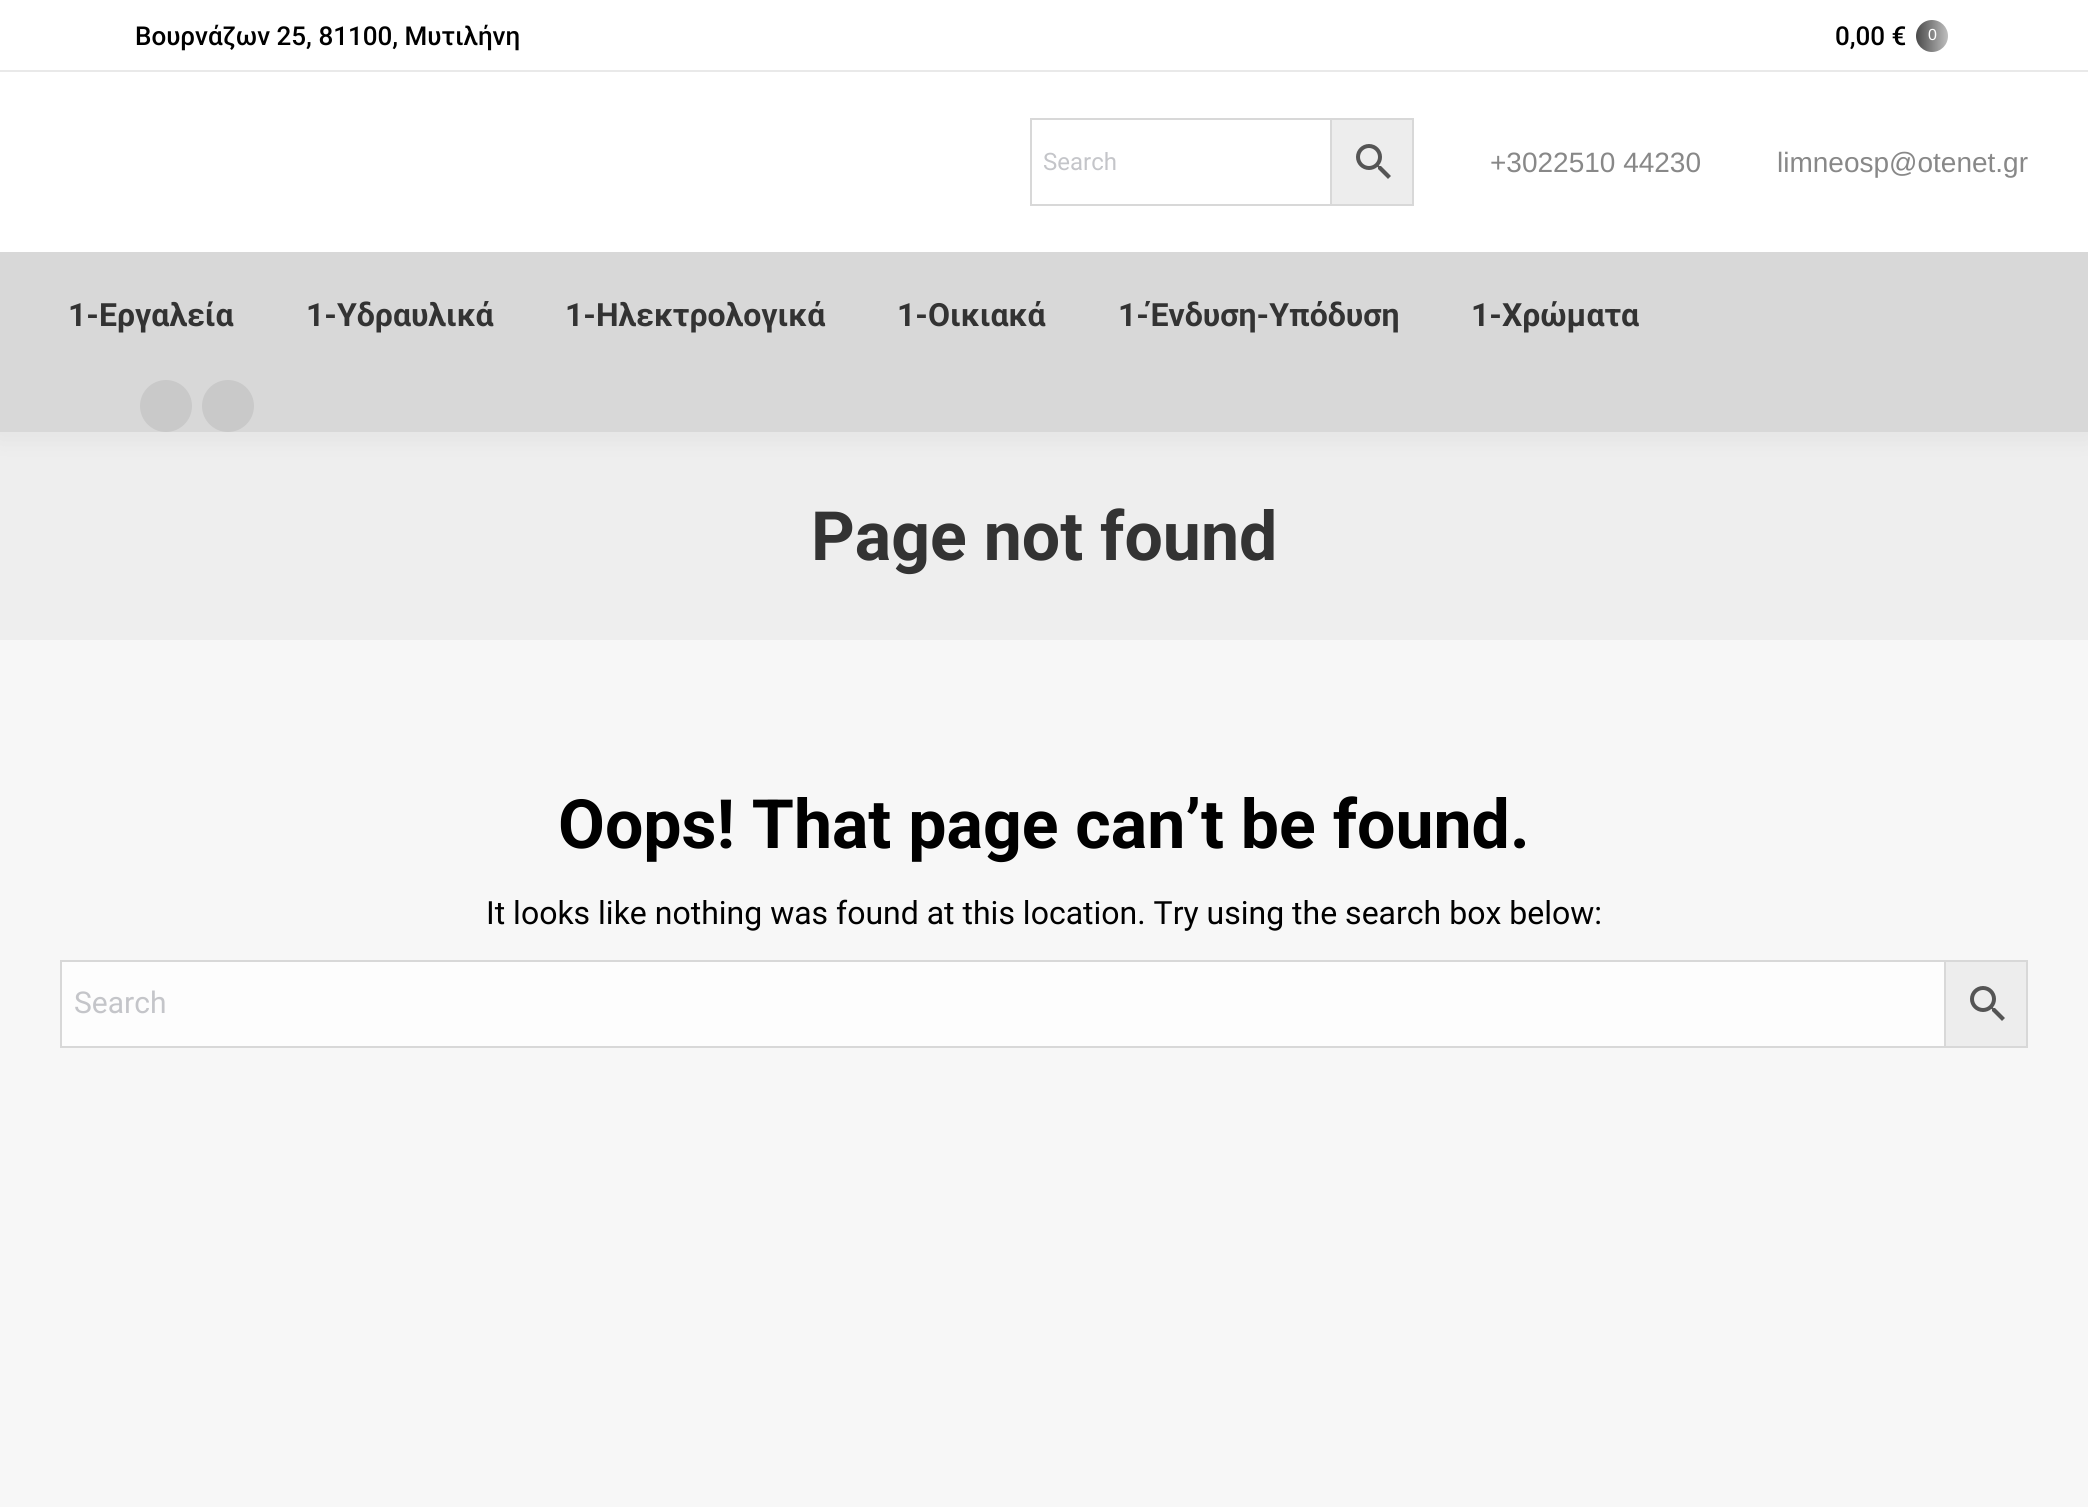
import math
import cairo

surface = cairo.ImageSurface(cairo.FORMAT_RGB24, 2088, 1507)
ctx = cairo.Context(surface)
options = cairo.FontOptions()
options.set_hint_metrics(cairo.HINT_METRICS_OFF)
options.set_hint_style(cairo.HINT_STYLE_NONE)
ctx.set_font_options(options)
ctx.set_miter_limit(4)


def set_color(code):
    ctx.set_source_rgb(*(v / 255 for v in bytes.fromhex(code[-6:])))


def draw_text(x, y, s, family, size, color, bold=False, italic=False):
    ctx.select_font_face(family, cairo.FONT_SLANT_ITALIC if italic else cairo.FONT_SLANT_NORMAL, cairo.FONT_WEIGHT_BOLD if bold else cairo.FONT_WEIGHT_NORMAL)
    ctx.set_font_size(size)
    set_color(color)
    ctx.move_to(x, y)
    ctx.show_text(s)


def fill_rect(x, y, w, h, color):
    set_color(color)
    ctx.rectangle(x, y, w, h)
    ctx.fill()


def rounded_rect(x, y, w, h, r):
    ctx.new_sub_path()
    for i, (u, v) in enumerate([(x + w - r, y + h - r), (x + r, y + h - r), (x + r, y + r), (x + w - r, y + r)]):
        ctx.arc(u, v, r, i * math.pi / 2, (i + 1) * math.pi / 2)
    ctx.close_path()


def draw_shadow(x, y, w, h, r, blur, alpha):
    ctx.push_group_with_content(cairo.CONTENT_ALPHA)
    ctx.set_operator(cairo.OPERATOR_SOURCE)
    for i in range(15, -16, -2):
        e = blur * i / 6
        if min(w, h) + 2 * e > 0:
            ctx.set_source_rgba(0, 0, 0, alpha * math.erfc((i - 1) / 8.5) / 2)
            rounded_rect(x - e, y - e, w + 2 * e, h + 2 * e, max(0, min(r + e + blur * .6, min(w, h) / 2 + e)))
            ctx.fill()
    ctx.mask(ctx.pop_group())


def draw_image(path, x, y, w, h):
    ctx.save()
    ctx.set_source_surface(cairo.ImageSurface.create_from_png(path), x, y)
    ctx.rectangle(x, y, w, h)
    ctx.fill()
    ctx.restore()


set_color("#f7f7f7")
ctx.paint()
fill_rect(0, 432, 2088, 208, "#eeeeee")
set_color("#000000")
draw_shadow(-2, -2, 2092, 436, 0, 15, 0.07)
fill_rect(0, 0, 2088, 252, "#ffffff")
draw_text(135, 45, "Βουρνάζων 25, 81100, Μυτιλήνη", "Roboto Medium", 26, "#000000")
draw_text(1835, 45, "0,00 €", "Roboto Medium", 26, "#000000")
gradient = cairo.LinearGradient(1916, 36, 1948, 36)
gradient.add_color_stop_rgba(0, 0.29, 0.29, 0.29, 1)
gradient.add_color_stop_rgba(0.98, 0.737, 0.737, 0.737, 1)
ctx.set_source(gradient)
ctx.new_path()
ctx.arc(1932, 36, 16, 0, 2 * math.pi)
ctx.fill()
draw_text(1928, 40, "0", "Liberation Sans", 16, "#ffffff")
fill_rect(0, 70, 2088, 2, "#e9e9e9")
set_color("#ededed")
ctx.rectangle(1331, 119, 82, 86)
ctx.fill_preserve()
set_color("#d8d8d8")
ctx.stroke()
ctx.rectangle(1031, 119, 300, 86)
ctx.stroke()
draw_text(1043, 170, "Search", "Roboto", 24, "#c4c5c9")
draw_image("assets/img1.png", 1356, 144, 35, 35)
draw_text(1490, 172, "+3022510 44230", "Liberation Sans", 28, "#888888")
draw_text(1777, 172, "limneosp@otenet.gr", "Liberation Sans", 28, "#888888")
fill_rect(0, 252, 2088, 180, "#d8d8d8")
draw_text(68, 326, "1-Εργαλεία", "Roboto", 32, "#333333", bold=True)
draw_text(306, 326, "1-Υδραυλικά", "Roboto", 32, "#333333", bold=True)
draw_text(565, 326, "1-Ηλεκτρολογικά", "Roboto", 32, "#333333", bold=True)
draw_text(897, 326, "1-Οικιακά", "Roboto", 32, "#333333", bold=True)
draw_text(1118, 326, "1-Ένδυση-Υπόδυση", "Roboto", 32, "#333333", bold=True)
draw_text(1471, 326, "1-Χρώματα", "Roboto", 32, "#333333", bold=True)
set_color("#c9c9c9")
ctx.new_path()
ctx.arc(166, 406, 26, 0, 2 * math.pi)
ctx.fill()
ctx.arc(228, 406, 26, 0, 2 * math.pi)
ctx.fill()
draw_text(811, 560, "Page not found", "Roboto", 68, "#333333", bold=True)
draw_text(558, 848, "Oops! That page can’t be found.", "Roboto", 68, "#000000", bold=True)
draw_text(486, 924, "It looks like nothing was found at this location. Try using the search box below:", "Roboto", 32, "#000000")
set_color("#ededed")
ctx.rectangle(1945, 961, 82, 86)
ctx.fill_preserve()
set_color("#d8d8d8")
ctx.stroke()
set_color("#fdfdfd")
ctx.rectangle(61, 961, 1884, 86)
ctx.fill_preserve()
set_color("#d8d8d8")
ctx.stroke()
draw_text(74, 1013, "Search", "Roboto", 30, "#c4c5c9")
draw_image("assets/img1.png", 1970, 986, 35, 35)
surface.write_to_png("output.png")
